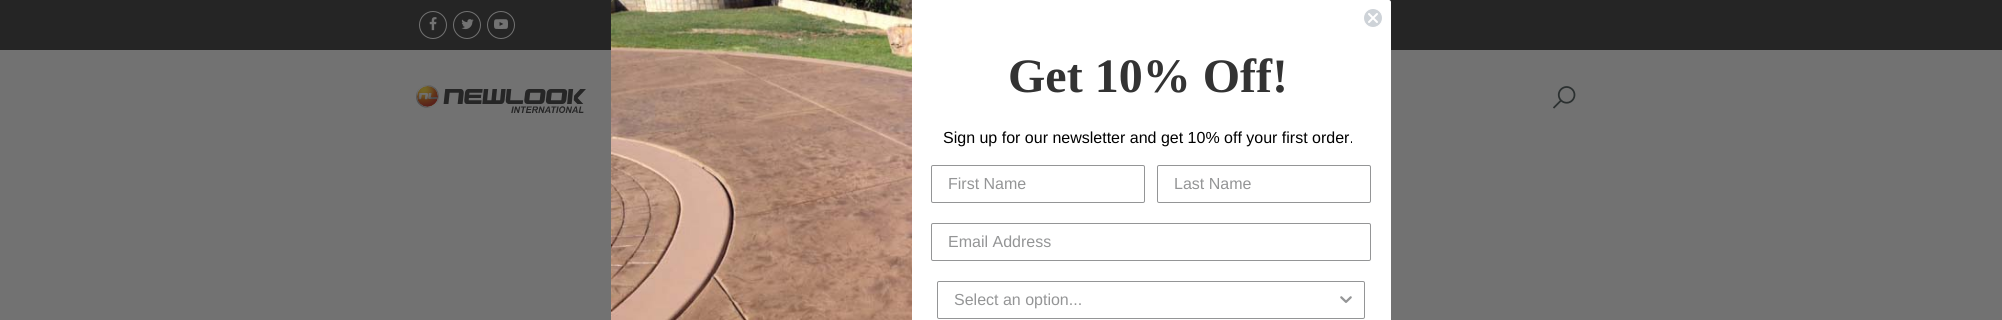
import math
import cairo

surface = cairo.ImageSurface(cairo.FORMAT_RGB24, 2002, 320)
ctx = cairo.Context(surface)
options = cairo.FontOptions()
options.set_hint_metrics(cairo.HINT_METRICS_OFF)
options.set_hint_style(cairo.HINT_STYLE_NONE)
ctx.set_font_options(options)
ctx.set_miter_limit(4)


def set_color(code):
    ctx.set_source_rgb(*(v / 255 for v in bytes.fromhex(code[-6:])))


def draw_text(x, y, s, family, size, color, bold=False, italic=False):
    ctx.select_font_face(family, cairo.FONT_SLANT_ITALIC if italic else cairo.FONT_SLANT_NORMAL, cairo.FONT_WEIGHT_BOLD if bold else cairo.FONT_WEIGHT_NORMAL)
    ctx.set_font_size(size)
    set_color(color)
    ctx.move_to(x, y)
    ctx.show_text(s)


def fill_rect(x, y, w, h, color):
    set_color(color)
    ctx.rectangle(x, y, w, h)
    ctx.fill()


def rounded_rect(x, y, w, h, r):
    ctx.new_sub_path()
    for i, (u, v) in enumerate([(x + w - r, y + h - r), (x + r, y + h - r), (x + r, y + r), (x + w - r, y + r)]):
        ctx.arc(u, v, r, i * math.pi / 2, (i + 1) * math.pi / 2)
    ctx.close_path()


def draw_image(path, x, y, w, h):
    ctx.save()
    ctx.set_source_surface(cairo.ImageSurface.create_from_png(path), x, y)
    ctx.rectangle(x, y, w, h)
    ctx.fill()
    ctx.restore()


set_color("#727272")
ctx.paint()
fill_rect(0, 0, 2002, 50, "#252525")
ctx.arc(433, 25, 13.5, 0, 2 * math.pi)
set_color("#727272")
ctx.set_line_width(1)
ctx.stroke()
draw_image("assets/img1.png", 429, 17, 8, 14)
ctx.arc(467, 25, 13.5, 0, 2 * math.pi)
ctx.stroke()
draw_image("assets/img2.png", 461, 19, 13, 11)
ctx.arc(501, 25, 13.5, 0, 2 * math.pi)
ctx.stroke()
draw_image("assets/img3.png", 494, 19, 14, 10)
draw_image("assets/img4.png", 416, 85, 170, 28)
draw_image("assets/img5.png", 1553, 86, 23, 23)
set_color("#ffffff")
ctx.new_path()
ctx.move_to(613, 0)
ctx.line_to(1389, 0)
ctx.curve_to(1390, 0, 1391, 1, 1391, 2)
ctx.line_to(1391, 320)
ctx.line_to(611, 320)
ctx.line_to(611, 2)
ctx.curve_to(611, 1, 612, 0, 613, 0)
ctx.close_path()
ctx.fill()
draw_image("assets/img6.png", 1364, 9, 18, 18)
draw_image("assets/img7.png", 611, 0, 301, 320)
draw_text(1008, 92, "Get 10% Off!", "Liberation Serif", 48, "#333333", bold=True)
draw_text(943, 143, "Sign up for our newsletter and get 10% off your first order.", "Liberation Sans", 16, "#000000")
rounded_rect(931.5, 165.5, 213, 37, 1.5)
set_color("#949596")
ctx.stroke()
draw_text(948, 189, "First Name", "Liberation Sans", 16, "#949596")
rounded_rect(1157.5, 165.5, 213, 37, 1.5)
ctx.stroke()
draw_text(1174, 189, "Last Name", "Liberation Sans", 16, "#949596")
rounded_rect(931.5, 223.5, 439, 37, 1.5)
ctx.stroke()
draw_text(948, 247, "Email Address", "Liberation Sans", 16, "#949596")
rounded_rect(937.5, 281.5, 427, 37, 1.5)
ctx.stroke()
draw_text(954, 305, "Select an option...", "Liberation Sans", 16, "#949596")
draw_image("assets/img8.png", 1340, 296, 12, 7)
surface.write_to_png("output.png")
